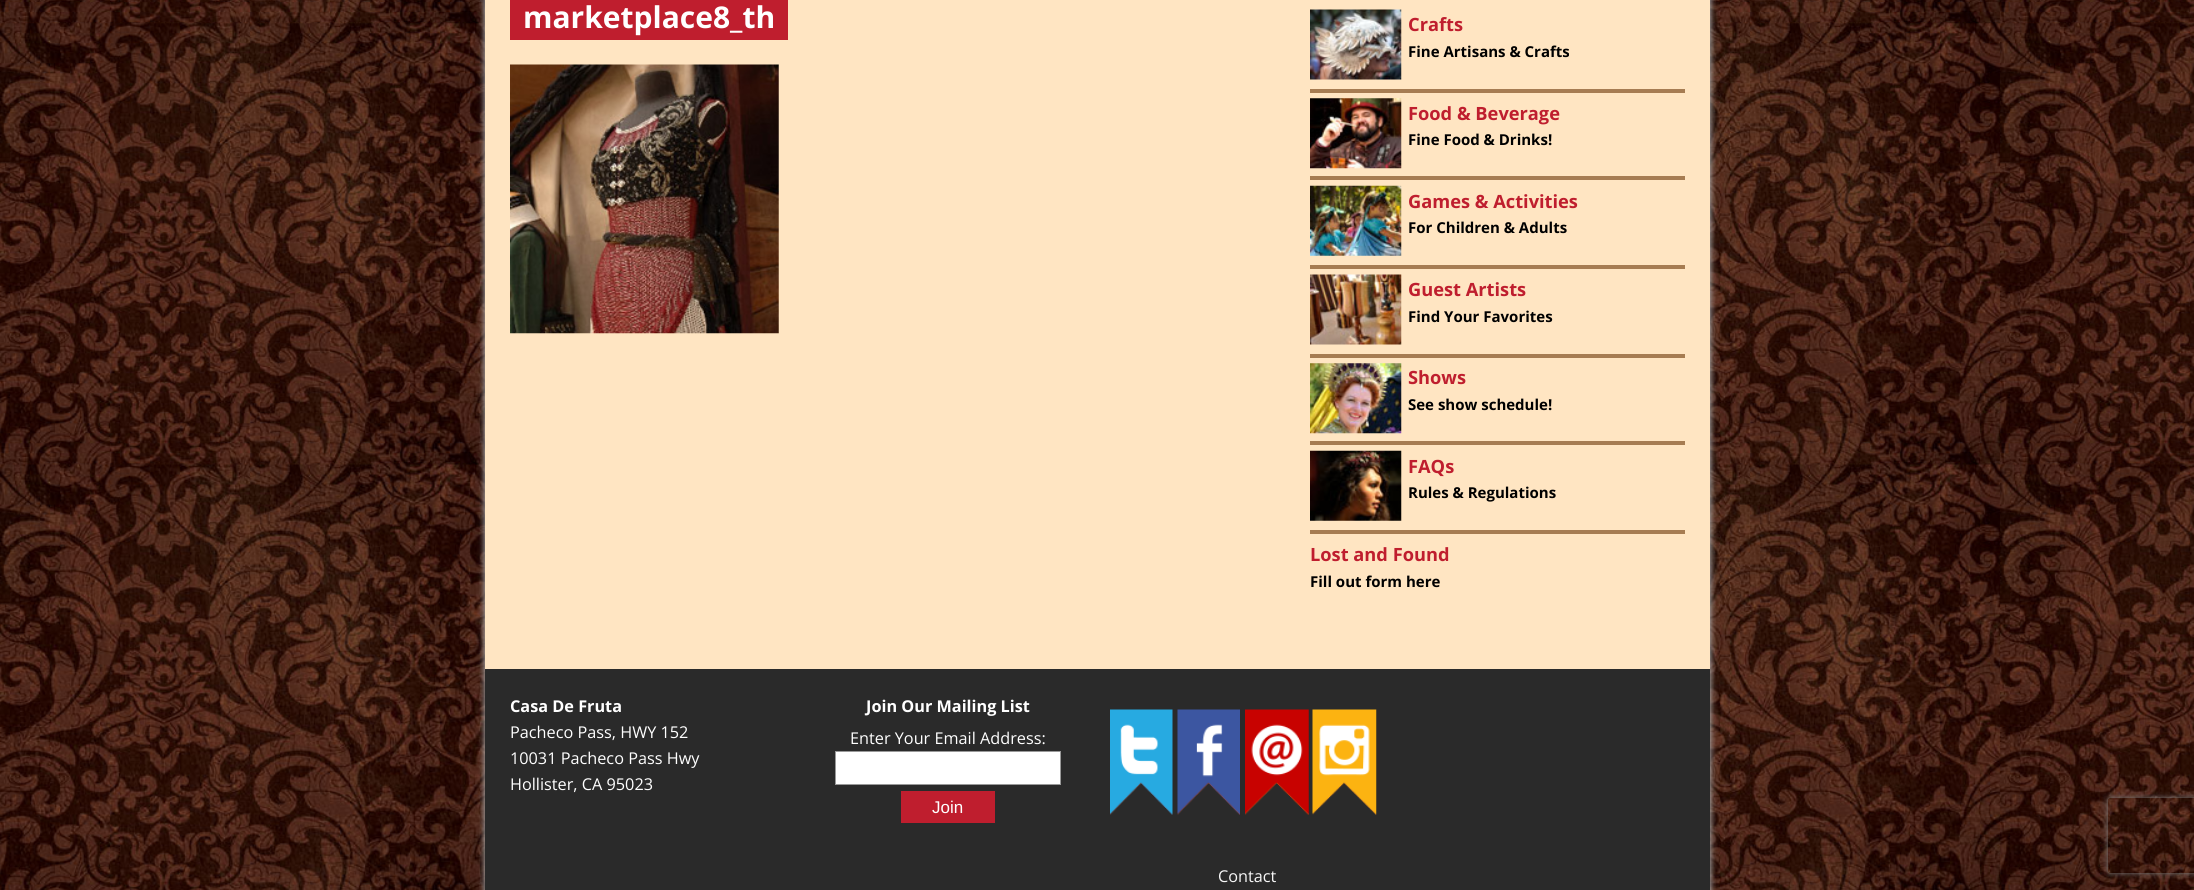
import math
import cairo

surface = cairo.ImageSurface(cairo.FORMAT_RGB24, 2194, 890)
c = cairo.Context(surface)
options = cairo.FontOptions()
options.set_hint_metrics(cairo.HINT_METRICS_OFF)
options.set_hint_style(cairo.HINT_STYLE_NONE)
c.set_font_options(options)
c.set_miter_limit(4)
def C(code):
 c.set_source_rgb(*(v / 255 for v in bytes.fromhex(code[-6:])))
def F(family, size, italic, bold):
 c.select_font_face(family, cairo.FONT_SLANT_ITALIC if italic else cairo.FONT_SLANT_NORMAL, cairo.FONT_WEIGHT_BOLD if bold else cairo.FONT_WEIGHT_NORMAL)
 c.set_font_size(size)
def T(x, y, s):
 c.move_to(x, y)
 c.show_text(s)
def R(x, y, w, h):
 c.rectangle(x, y, w, h)
 c.fill()
def Q(x, y, w, h, r):
 c.new_sub_path()
 for i, (u, v) in enumerate([(x + w - r, y + h - r), (x + r, y + h - r), (x + r, y + r), (x + w - r, y + r)]):
  c.arc(u, v, r, i * math.pi / 2, (i + 1) * math.pi / 2)
 c.close_path()
def S(x, y, w, h, r, blur, alpha):
 c.push_group_with_content(cairo.CONTENT_ALPHA)
 c.set_operator(cairo.OPERATOR_SOURCE)
 for i in range(15, -16, -2):
  e = blur * i / 6
  if min(w, h) + 2 * e > 0:
   c.set_source_rgba(0, 0, 0, alpha * math.erfc((i - 1) / 8.5) / 2)
   Q(x - e, y - e, w + 2 * e, h + 2 * e, max(0, min(r + e + blur * .6, min(w, h) / 2 + e)))
   c.fill()
 c.mask(c.pop_group())
def I(path, x, y, w, h):
 c.save()
 c.set_source_surface(cairo.ImageSurface.create_from_png(path), x, y)
 c.rectangle(x, y, w, h)
 c.fill()
 c.restore()
C('ffffff')
c.paint()
I('1.png',0,0,2194,890)
C('a8a8a8')
S(484,-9,1227,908,0,3,1)
C('ffe5c2')
R(485,0,1225,669)
C('bf1e2e')
R(510,0,278,40)
F('Open Sans',30,0,1)
C('ffffff')
T(523,28,'marketplace8_th')
I('2.png',510,64,269,270)
C('a67c52')
R(1310,89,375,4)
I('3.png',1310,9,92,71)
F('Open Sans',18.25,0,1)
C('bf1e2e')
T(1408,31,'Crafts')
F('Open Sans',15,0,1)
C('000000')
T(1408,57,'Fine Artisans & Crafts')
C('a67c52')
R(1310,176,375,4)
I('4.png',1310,98,92,71)
F('Open Sans',18.25,0,1)
C('bf1e2e')
T(1408,120,'Food & Beverage')
F('Open Sans',15,0,1)
C('000000')
T(1408,145,'Fine Food & Drinks!')
C('a67c52')
R(1310,265,375,4)
I('5.png',1310,185,92,71)
F('Open Sans',18.25,0,1)
C('bf1e2e')
T(1408,208,'Games & Activities')
F('Open Sans',15,0,1)
C('000000')
T(1408,233,'For Children & Adults')
C('a67c52')
R(1310,354,375,4)
I('6.png',1310,274,92,71)
F('Open Sans',18.25,0,1)
C('bf1e2e')
T(1408,296,'Guest Artists')
F('Open Sans',15,0,1)
C('000000')
T(1408,322,'Find Your Favorites')
C('a67c52')
R(1310,441,375,4)
I('7.png',1310,363,92,71)
F('Open Sans',18.25,0,1)
C('bf1e2e')
T(1408,384,'Shows')
F('Open Sans',15,0,1)
C('000000')
T(1408,410,'See show schedule!')
C('a67c52')
R(1310,530,375,4)
I('8.png',1310,450,92,71)
F('Open Sans',18.25,0,1)
C('bf1e2e')
T(1408,473,'FAQs')
F('Open Sans',15,0,1)
C('000000')
T(1408,498,'Rules & Regulations')
F('Open Sans',18.25,0,1)
C('bf1e2e')
T(1310,561,'Lost and Found')
F('Open Sans',15,0,1)
C('000000')
T(1310,587,'Fill out form here')
C('2a2a2a')
R(485,669,1225,221)
F('Open Sans',16.25,0,1)
C('ffffff')
T(510,712,'Casa De Fruta')
F('Open Sans',16.25,0,0)
T(510,738,'Pacheco Pass, HWY 152')
T(510,764,'10031 Pacheco Pass Hwy')
T(510,790,'Hollister, CA 95023')
F('Open Sans',16.25,0,1)
T(866,712,'Join Our Mailing List')
F('Open Sans',16.25,0,0)
T(850,744,'Enter Your Email Address:')
c.rectangle(835.5,751.5,225,33)
c.fill_preserve()
C('999999')
c.set_line_width(1)
c.stroke()
C('bf1e2e')
R(901,791,94,32)
F('Liberation Sans',17,0,0)
C('ffffff')
T(932,813,'Join')
I('9.png',1110,709,63,106)
I('10.png',1177,709,63,106)
I('11.png',1245,709,64,106)
I('12.png',1312,709,65,106)
F('Open Sans',16.25,0,0)
C('f7f7f7')
T(1218,882,'Contact')
c.save()
c.set_fill_rule(cairo.FILL_RULE_EVEN_ODD)
c.new_path()
c.move_to(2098,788)
c.line_to(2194,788)
c.line_to(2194,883)
c.line_to(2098,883)
c.close_path()
c.move_to(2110.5,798)
c.line_to(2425.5,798)
c.curve_to(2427,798,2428,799,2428,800.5)
c.line_to(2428,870.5)
c.curve_to(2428,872,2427,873,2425.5,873)
c.line_to(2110.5,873)
c.curve_to(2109,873,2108,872,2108,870.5)
c.line_to(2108,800.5)
c.curve_to(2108,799,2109,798,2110.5,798)
c.close_path()
c.clip()
C('808080')
S(2108,798,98,75,2.5,3,1)
c.restore()
surface.write_to_png('o.png')
